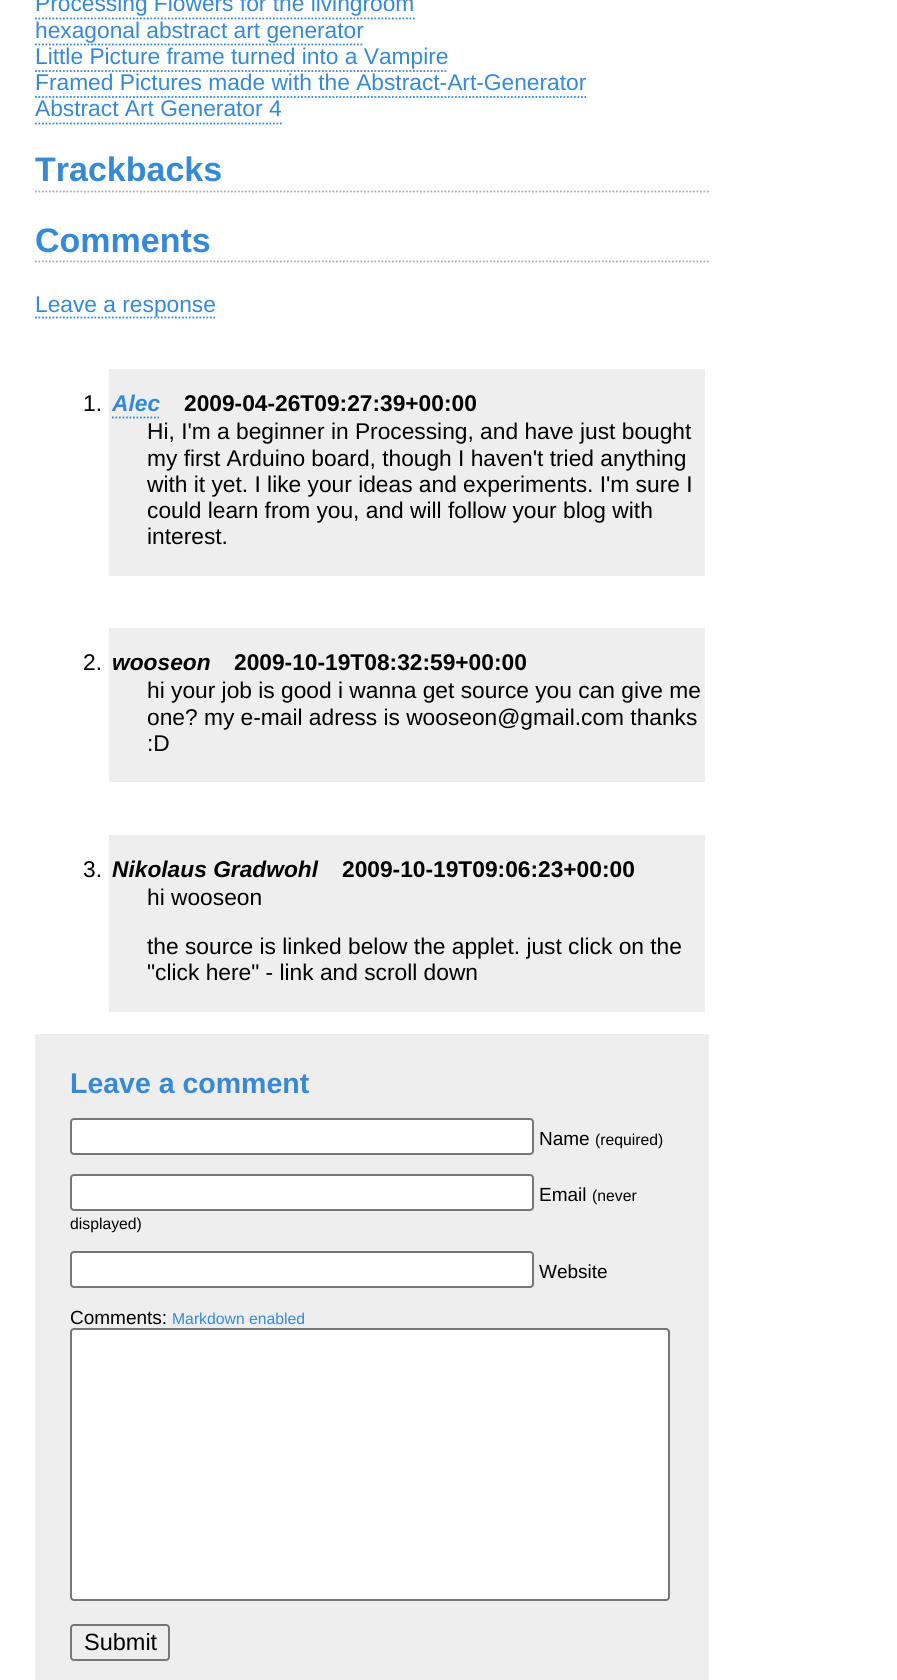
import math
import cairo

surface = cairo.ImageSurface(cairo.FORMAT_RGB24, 897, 1680)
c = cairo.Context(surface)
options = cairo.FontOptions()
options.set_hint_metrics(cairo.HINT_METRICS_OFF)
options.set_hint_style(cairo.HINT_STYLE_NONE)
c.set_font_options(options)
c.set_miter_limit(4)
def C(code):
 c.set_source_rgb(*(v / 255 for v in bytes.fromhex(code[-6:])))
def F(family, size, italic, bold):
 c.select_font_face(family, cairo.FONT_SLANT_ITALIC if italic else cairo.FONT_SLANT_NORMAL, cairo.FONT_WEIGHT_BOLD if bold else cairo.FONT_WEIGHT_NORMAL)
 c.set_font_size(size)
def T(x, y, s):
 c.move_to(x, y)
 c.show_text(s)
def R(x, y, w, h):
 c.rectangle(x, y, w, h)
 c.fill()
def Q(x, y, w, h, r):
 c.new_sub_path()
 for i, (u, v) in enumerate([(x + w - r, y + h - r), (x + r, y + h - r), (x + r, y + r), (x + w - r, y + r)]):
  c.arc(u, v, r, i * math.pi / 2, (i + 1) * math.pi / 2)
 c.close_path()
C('ffffff')
c.paint()
F('Liberation Sans',22.75,0,0)
C('348ad6')
T(35,11,'Processing Flowers for the livingroom')
c.new_path()
c.move_to(35,18.5)
c.line_to(415,18.5)
c.set_line_width(1.8)
c.set_dash([1.75,1.75])
c.stroke()
T(35,38,'hexagonal abstract art generator')
c.new_path()
c.move_to(35,44.5)
c.line_to(364,44.5)
c.stroke()
T(35,64,'Little Picture frame turned into a Vampire')
c.new_path()
c.move_to(35,71)
c.line_to(448,71)
c.stroke()
T(35,90,'Framed Pictures made with the Abstract-Art-Generator')
c.new_path()
c.move_to(35,97)
c.line_to(586,97)
c.stroke()
T(35,116,'Abstract Art Generator 4')
c.new_path()
c.move_to(35,123.5)
c.line_to(282,123.5)
c.stroke()
c.new_path()
c.move_to(35,191.5)
c.line_to(709,191.5)
C('aaaaaa')
c.stroke()
F('Liberation Sans',34,0,1)
C('348ad6')
T(35,181,'Trackbacks')
c.new_path()
c.move_to(35,261.5)
c.line_to(709,261.5)
C('aaaaaa')
c.stroke()
C('348ad6')
T(35,252,'Comments')
c.new_path()
c.move_to(35,317.5)
c.line_to(215,317.5)
c.stroke()
F('Liberation Sans',22.75,0,0)
T(35,312,'Leave a response')
C('eeeeee')
R(109,369,596,207)
C('000000')
T(83,411,'1.')
F('Liberation Sans',22.75,1,1)
C('348ad6')
T(112,411,'Alec')
c.new_path()
c.move_to(112,417.5)
c.line_to(159,417.5)
c.stroke()
F('Liberation Sans',22.75,0,1)
C('000000')
T(184,411,'2009-04-26T09:27:39+00:00')
F('Liberation Sans',22.75,0,0)
T(147,439,'Hi, I\'m a beginner in Processing, and have just bought')
T(147,466,'my first Arduino board, though I haven\'t tried anything')
T(147,492,'with it yet. I like your ideas and experiments. I\'m sure I')
T(147,518,'could learn from you, and will follow your blog with')
T(147,544,'interest.')
C('eeeeee')
R(109,628,596,154)
C('000000')
T(83,670,'2.')
F('Liberation Sans',22.75,1,1)
T(112,670,'wooseon')
F('Liberation Sans',22.75,0,1)
T(234,670,'2009-10-19T08:32:59+00:00')
F('Liberation Sans',22.75,0,0)
T(147,698,'hi your job is good i wanna get source you can give me')
T(147,725,'one? my e-mail adress is wooseon@gmail.com thanks')
T(147,751,':D')
C('eeeeee')
R(109,835,596,177)
C('000000')
T(83,877,'3.')
F('Liberation Sans',22.75,1,1)
T(112,877,'Nikolaus Gradwohl')
F('Liberation Sans',22.75,0,1)
T(342,877,'2009-10-19T09:06:23+00:00')
F('Liberation Sans',22.75,0,0)
T(147,905,'hi wooseon')
T(147,954,'the source is linked below the applet. just click on the')
T(147,980,'"click here" - link and scroll down')
C('eeeeee')
R(35,1034,674,646)
F('Liberation Sans',28.5,0,1)
C('348ad6')
T(70,1093,'Leave a comment')
C('ffffff')
Q(71,1119,462,35,3)
c.fill_preserve()
C('767676')
c.set_line_width(2)
c.set_dash([])
c.stroke()
F('Liberation Sans',19,0,0)
C('000000')
T(539,1145,'Name')
F('Liberation Sans',15.75,0,0)
T(595,1145,'(required)')
C('ffffff')
Q(71,1175,462,35,3)
c.fill_preserve()
C('767676')
c.stroke()
F('Liberation Sans',19,0,0)
C('000000')
T(539,1201,'Email')
F('Liberation Sans',15.75,0,0)
T(592,1201,'(never')
T(70,1229,'displayed)')
C('ffffff')
Q(71,1252,462,35,3)
c.fill_preserve()
C('767676')
c.stroke()
F('Liberation Sans',19,0,0)
C('000000')
T(539,1278,'Website')
T(70,1324,'Comments:')
F('Liberation Sans',15.75,0,0)
C('348ad6')
T(172,1324,'Markdown enabled')
C('ffffff')
Q(71,1329,598,271,3)
c.fill_preserve()
C('767676')
c.stroke()
Q(71,1625,98,35,3)
c.stroke()
F('Liberation Sans',23.5,0,0)
C('000000')
T(84,1650,'Submit')
surface.write_to_png('o.png')
